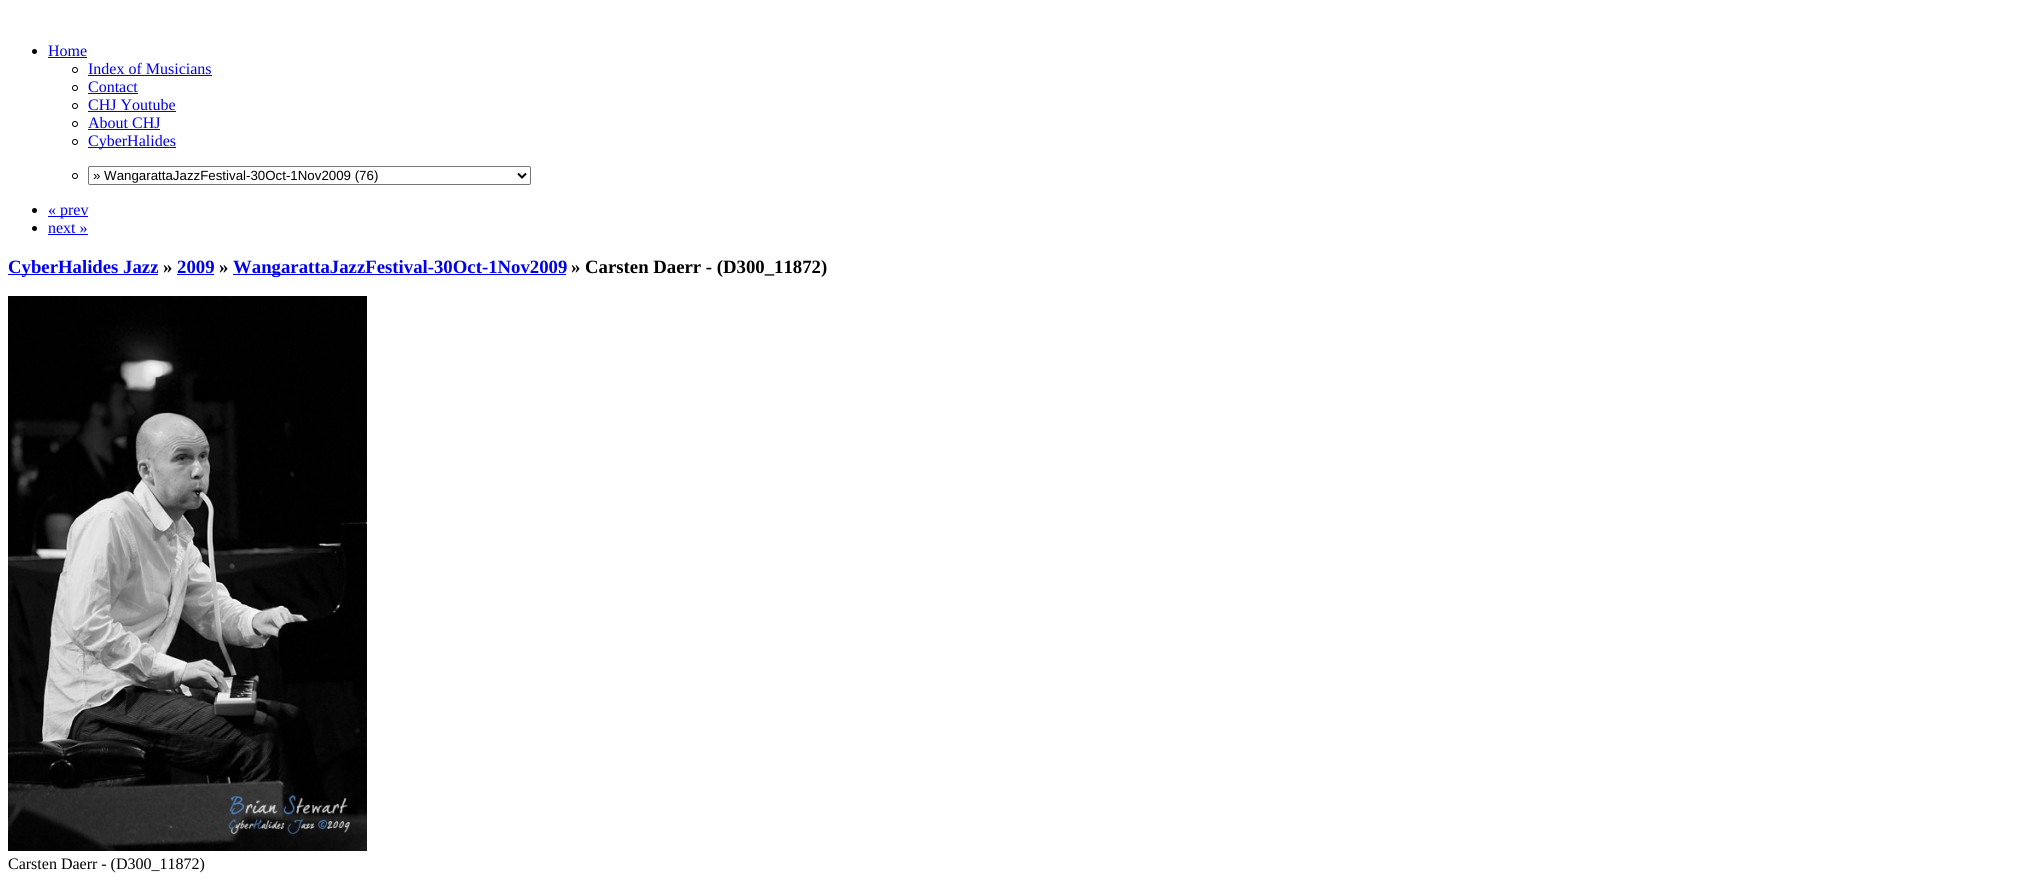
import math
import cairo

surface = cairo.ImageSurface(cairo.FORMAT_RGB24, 2043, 882)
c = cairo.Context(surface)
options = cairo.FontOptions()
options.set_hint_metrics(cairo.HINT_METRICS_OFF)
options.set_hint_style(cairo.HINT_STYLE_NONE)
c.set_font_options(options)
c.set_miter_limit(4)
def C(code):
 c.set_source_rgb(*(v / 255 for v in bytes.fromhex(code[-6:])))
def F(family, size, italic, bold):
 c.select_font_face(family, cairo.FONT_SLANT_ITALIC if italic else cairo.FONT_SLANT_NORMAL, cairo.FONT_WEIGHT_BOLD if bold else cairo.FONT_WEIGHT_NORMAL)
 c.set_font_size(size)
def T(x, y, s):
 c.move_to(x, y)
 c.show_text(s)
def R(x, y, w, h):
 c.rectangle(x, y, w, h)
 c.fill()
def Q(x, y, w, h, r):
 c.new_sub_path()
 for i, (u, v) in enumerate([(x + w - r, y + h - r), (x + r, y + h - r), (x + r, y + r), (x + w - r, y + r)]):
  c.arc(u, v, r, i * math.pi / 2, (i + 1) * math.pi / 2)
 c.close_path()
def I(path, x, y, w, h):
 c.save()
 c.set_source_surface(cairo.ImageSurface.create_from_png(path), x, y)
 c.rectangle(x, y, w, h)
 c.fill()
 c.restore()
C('ffffff')
c.paint()
C('000000')
c.arc(34.5,51.5,2.5,0,2 * math.pi)
c.fill()
F('Liberation Serif',16,0,0)
C('0000ee')
T(48,56,'Home')
R(48,57,39,1)
c.new_path()
c.arc(75,70,2.5,0,2 * math.pi)
C('000000')
c.set_line_width(1)
c.stroke()
C('0000ee')
T(88,74,'Index of Musicians')
R(88,75,124,1)
c.new_path()
c.arc(75,88,2.5,0,2 * math.pi)
C('000000')
c.stroke()
C('0000ee')
T(88,92,'Contact')
R(88,93,50,1)
c.new_path()
c.arc(75,106,2.5,0,2 * math.pi)
C('000000')
c.stroke()
C('0000ee')
T(88,110,'CHJ Youtube')
R(88,111,88,1)
c.new_path()
c.arc(75,124,2.5,0,2 * math.pi)
C('000000')
c.stroke()
C('0000ee')
T(88,128,'About CHJ')
R(88,129,72,1)
c.new_path()
c.arc(75,142,2.5,0,2 * math.pi)
C('000000')
c.stroke()
C('0000ee')
R(88,147,88,1)
T(88,146,'CyberHalides')
c.new_path()
c.arc(75,176,2.5,0,2 * math.pi)
C('000000')
c.stroke()
Q(88.5,166.5,442,18,1.5)
C('767676')
c.stroke()
c.new_path()
c.move_to(518,173.5)
c.line_to(522,177.5)
c.line_to(526,173.5)
C('000000')
c.set_line_width(2)
c.stroke()
F('Liberation Sans',13.3,0,0)
T(93,180,'» WangarattaJazzFestival-30Oct-1Nov2009 (76)')
c.new_path()
c.arc(34.5,210.5,2.5,0,2 * math.pi)
c.fill()
C('0000ee')
R(48,216,40,1)
F('Liberation Serif',16,0,0)
T(48,215,'« prev')
C('000000')
c.new_path()
c.arc(34.5,228.5,2.5,0,2 * math.pi)
c.fill()
C('0000ee')
T(48,233,'next »')
R(48,234,40,1)
R(8,274,150,1)
F('Liberation Serif',18.75,0,1)
T(8,273,'CyberHalides Jazz')
C('000000')
T(163,273,'»')
C('0000ee')
T(177,273,'2009')
R(177,274,37,1)
C('000000')
T(219,273,'»')
C('0000ee')
R(233,274,333,1)
T(233,273,'WangarattaJazzFestival-30Oct-1Nov2009')
C('000000')
T(571,273,'» Carsten Daerr - (D300_11872)')
I('1.png',8,296,359,555)
F('Liberation Serif',16,0,0)
T(8,869,'Carsten Daerr - (D300_11872)')
surface.write_to_png('o.png')
